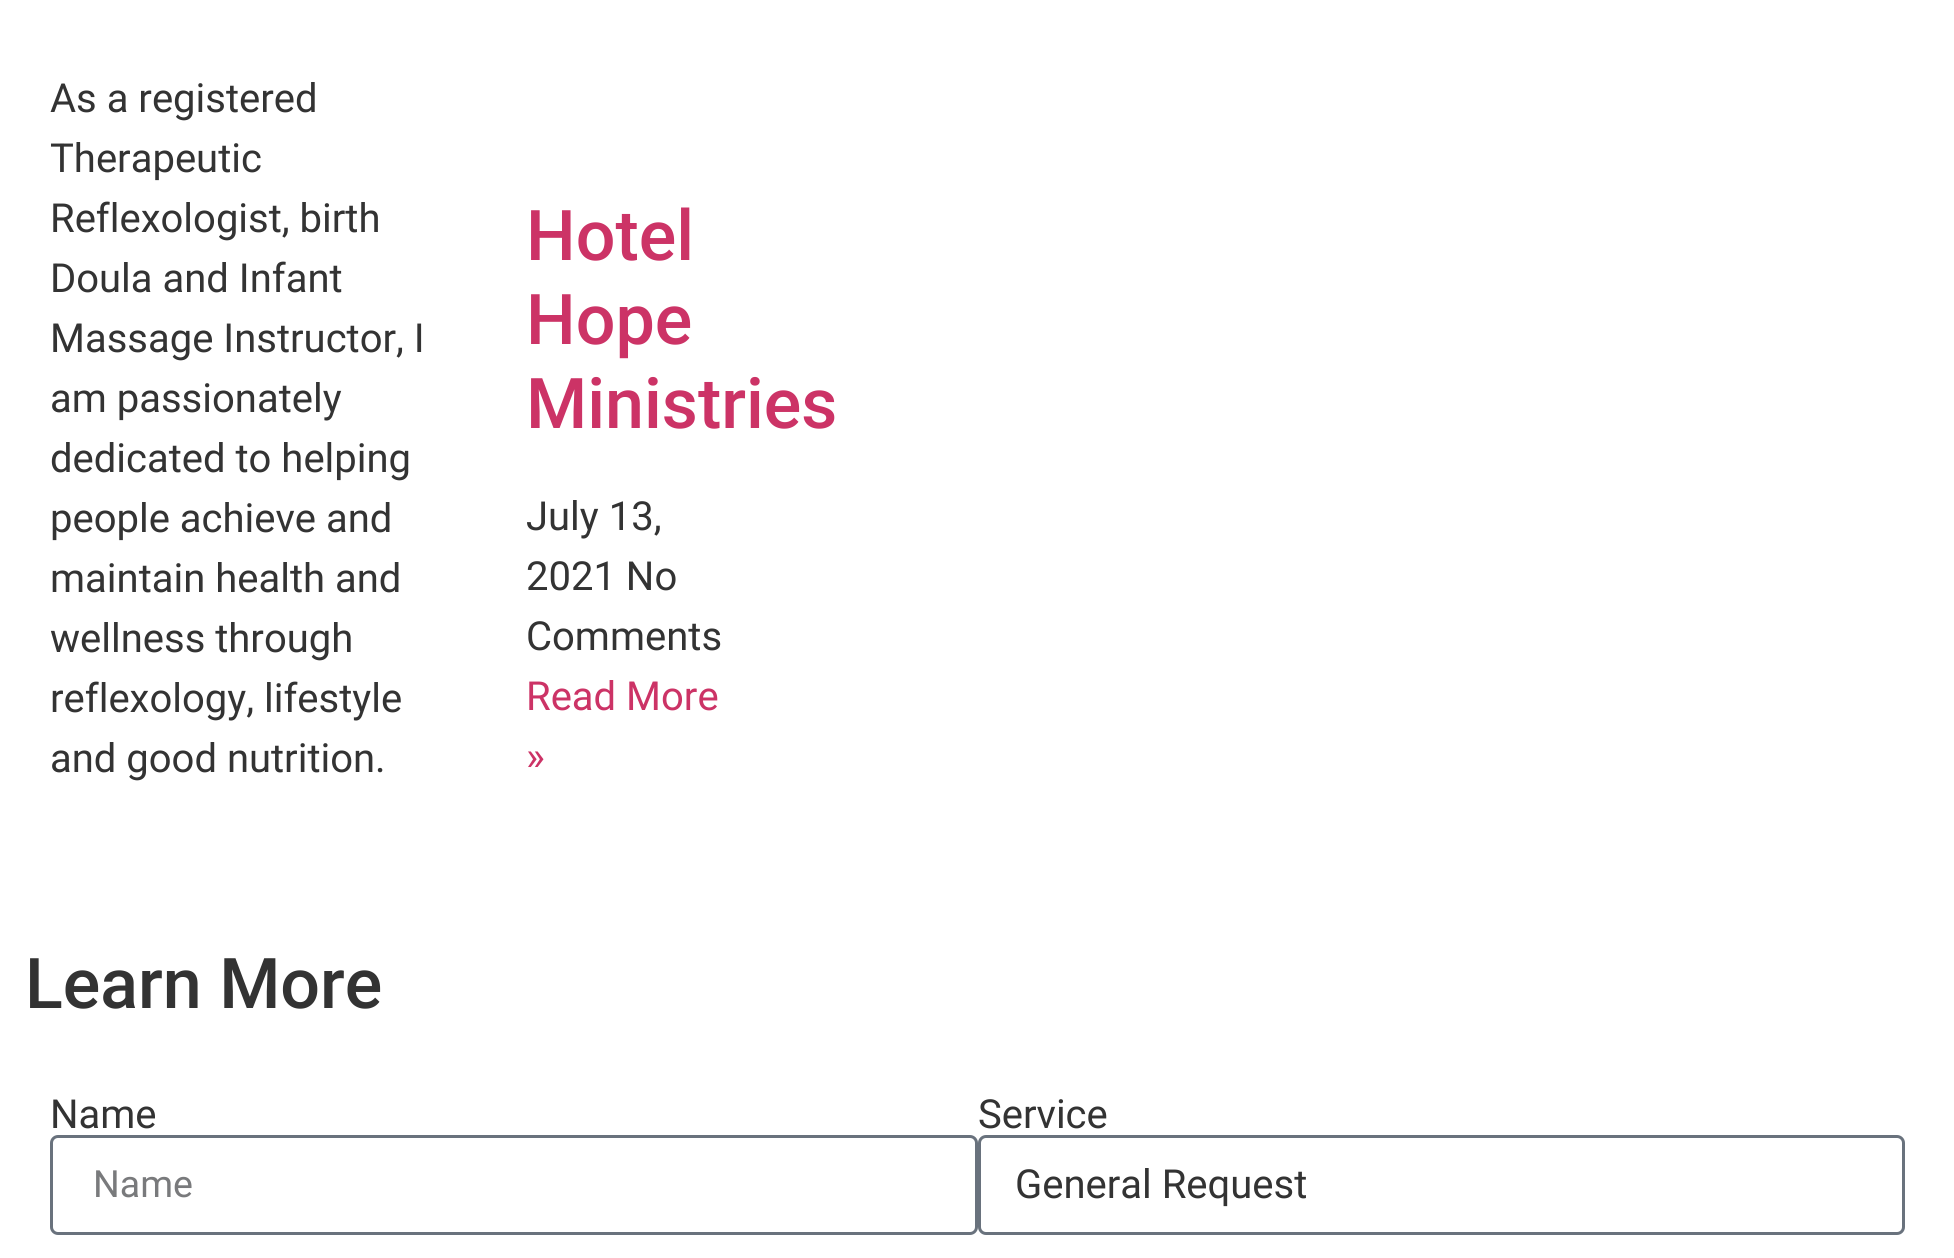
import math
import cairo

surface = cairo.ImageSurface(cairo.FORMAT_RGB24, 1954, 1258)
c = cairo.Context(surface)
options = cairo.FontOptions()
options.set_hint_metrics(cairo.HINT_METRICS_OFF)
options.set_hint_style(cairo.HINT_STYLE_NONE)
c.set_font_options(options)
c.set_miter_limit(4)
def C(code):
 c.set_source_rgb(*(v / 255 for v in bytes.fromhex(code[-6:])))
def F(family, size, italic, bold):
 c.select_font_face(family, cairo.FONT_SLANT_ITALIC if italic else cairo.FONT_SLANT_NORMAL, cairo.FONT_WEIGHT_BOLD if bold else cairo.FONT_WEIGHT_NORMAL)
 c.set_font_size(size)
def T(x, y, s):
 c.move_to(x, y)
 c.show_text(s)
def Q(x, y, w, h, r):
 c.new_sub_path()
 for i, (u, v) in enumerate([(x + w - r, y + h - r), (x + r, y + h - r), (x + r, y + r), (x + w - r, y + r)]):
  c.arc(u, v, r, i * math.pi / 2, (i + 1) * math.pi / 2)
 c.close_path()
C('ffffff')
c.paint()
F('Roboto',40,0,0)
C('333333')
T(50,112,'As a registered')
T(50,172,'Therapeutic')
T(50,232,'Reflexologist, birth')
T(50,292,'Doula and Infant')
T(50,352,'Massage Instructor, I')
T(50,412,'am passionately')
T(50,472,'dedicated to helping')
T(50,532,'people achieve and')
T(50,592,'maintain health and')
T(50,652,'wellness through')
T(50,712,'reflexology, lifestyle')
T(50,772,'and good nutrition.')
F('Roboto Medium',70,0,0)
C('cc3366')
T(526,260,'Hotel')
T(526,344,'Hope')
T(526,428,'Ministries')
F('Roboto',40,0,0)
C('333333')
T(526,530,'July 13,')
T(526,590,'2021 No')
T(526,650,'Comments')
C('cc3366')
T(526,710,'Read More')
T(526,770,'»')
F('Roboto Medium',70,0,0)
C('333333')
T(25,1008,'Learn More')
F('Roboto',40,0,0)
T(50,1128,'Name')
Q(51.5,1136.5,925,97,6.5)
C('69727d')
c.set_line_width(3)
c.stroke()
F('Roboto',37.5,0,0)
C('797a7c')
T(93,1197,'Name')
F('Roboto',40,0,0)
C('333333')
T(978,1128,'Service')
Q(979.5,1136.5,924,97,6.5)
C('69727d')
c.stroke()
C('333333')
T(1015,1198,'General Request')
surface.write_to_png('o.png')
